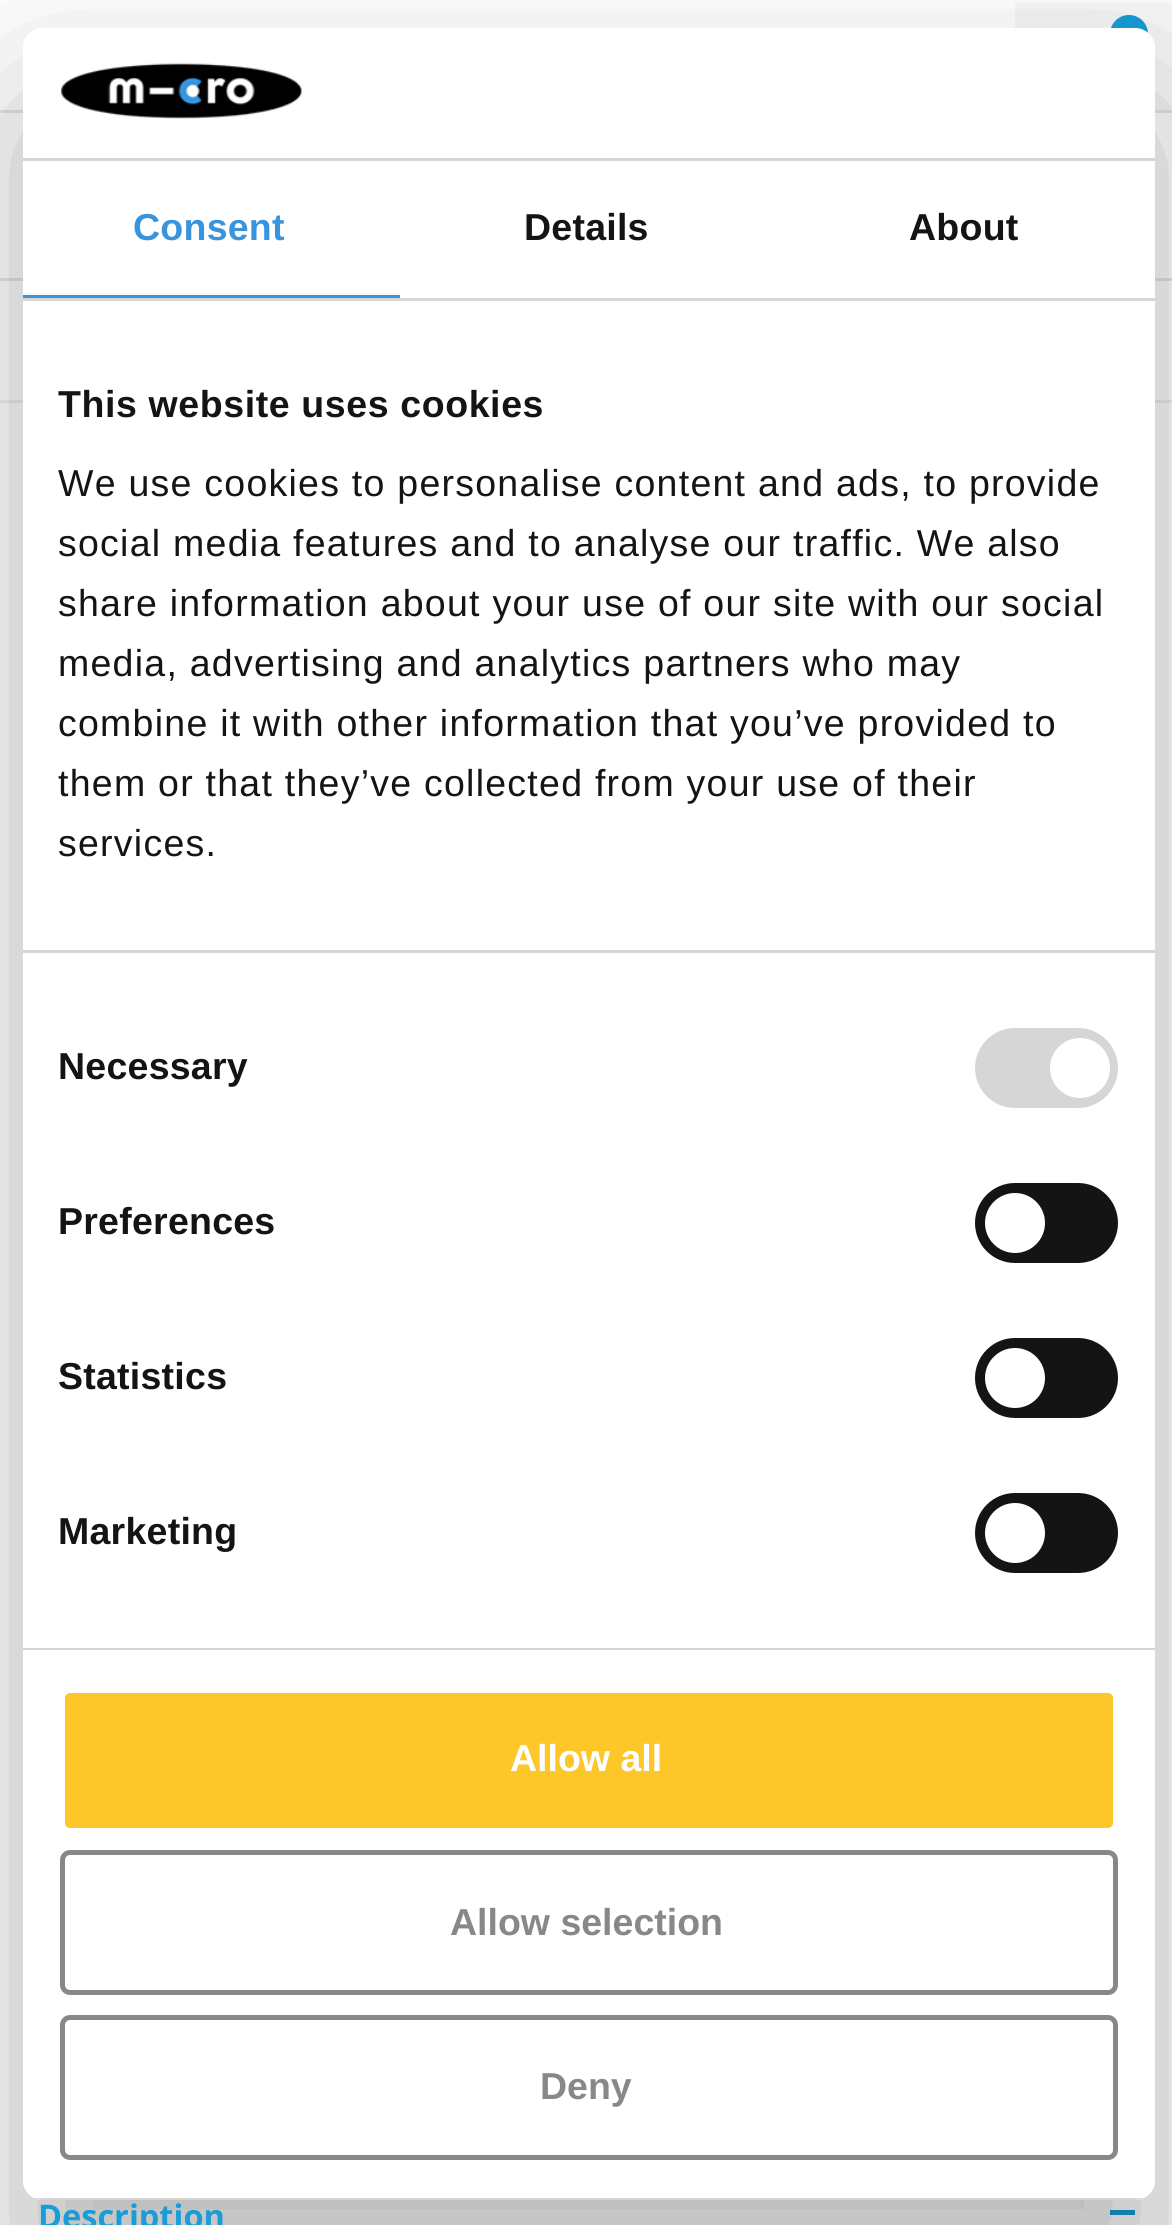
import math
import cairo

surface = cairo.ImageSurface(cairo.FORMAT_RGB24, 1172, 2225)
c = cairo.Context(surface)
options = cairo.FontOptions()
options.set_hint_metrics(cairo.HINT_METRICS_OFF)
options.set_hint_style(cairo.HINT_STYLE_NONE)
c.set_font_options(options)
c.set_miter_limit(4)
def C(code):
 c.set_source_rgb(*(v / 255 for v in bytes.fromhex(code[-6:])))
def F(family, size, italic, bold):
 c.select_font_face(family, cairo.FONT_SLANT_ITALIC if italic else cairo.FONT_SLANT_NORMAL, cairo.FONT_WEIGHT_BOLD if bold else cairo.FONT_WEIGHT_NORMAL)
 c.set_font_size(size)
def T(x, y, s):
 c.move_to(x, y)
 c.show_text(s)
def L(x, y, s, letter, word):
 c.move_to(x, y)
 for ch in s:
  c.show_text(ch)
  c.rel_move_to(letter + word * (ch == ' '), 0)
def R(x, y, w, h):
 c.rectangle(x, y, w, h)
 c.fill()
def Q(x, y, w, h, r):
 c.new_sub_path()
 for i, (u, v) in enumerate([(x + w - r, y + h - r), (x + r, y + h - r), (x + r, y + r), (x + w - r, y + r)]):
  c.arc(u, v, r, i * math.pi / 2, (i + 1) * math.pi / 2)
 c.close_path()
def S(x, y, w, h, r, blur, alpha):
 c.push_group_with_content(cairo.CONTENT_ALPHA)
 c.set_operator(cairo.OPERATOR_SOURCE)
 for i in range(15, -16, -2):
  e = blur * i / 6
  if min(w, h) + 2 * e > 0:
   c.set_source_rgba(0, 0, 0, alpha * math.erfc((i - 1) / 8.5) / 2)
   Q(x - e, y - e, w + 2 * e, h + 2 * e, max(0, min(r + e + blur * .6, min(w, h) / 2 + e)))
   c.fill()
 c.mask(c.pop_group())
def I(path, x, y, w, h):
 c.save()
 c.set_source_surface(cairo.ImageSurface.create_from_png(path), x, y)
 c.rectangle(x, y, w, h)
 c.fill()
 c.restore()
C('ffffff')
c.paint()
C('f7f7f7')
R(1015,3,157,107)
C('189dd8')
c.arc(1129,34,19,0,2 * math.pi)
c.fill()
C('e5e5e5')
R(0,110,1172,3)
R(0,278,1172,3)
C('efefef')
R(0,400,1172,3)
C('189dd8')
R(1110,2210,25,5)
c.save()
c.set_fill_rule(cairo.FILL_RULE_EVEN_ODD)
c.new_path()
c.move_to(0,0)
c.line_to(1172,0)
c.line_to(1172,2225)
c.line_to(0,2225)
c.close_path()
c.move_to(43,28)
c.line_to(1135,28)
c.curve_to(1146,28,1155,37,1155,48)
c.line_to(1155,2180)
c.curve_to(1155,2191,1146,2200,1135,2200)
c.line_to(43,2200)
c.curve_to(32,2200,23,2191,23,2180)
c.line_to(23,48)
c.curve_to(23,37,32,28,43,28)
c.close_path()
c.clip()
C('000000')
S(23,108,1132,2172,20,85,.3)
c.restore()
C('ffffff')
Q(23,28,1132,2172,20)
c.fill()
C('d6d6d6')
R(23,158,1132,3)
I('1.png',60,63,242,56)
R(23,298,1132,3)
C('3894dd')
R(23,295,377,3)
F('Liberation Sans',37.5,0,1)
L(133,240,'Consent',.25,0)
C('141414')
L(524,240,'Details',.25,0)
L(909,240,'About',.25,0)
C('d6d6d6')
R(23,950,1132,3)
C('141414')
L(58,417,'This website uses cookies',.6,0)
F('Liberation Sans',37.5,0,0)
L(58,496,'We use cookies to personalise content and ads, to provide',1.25,0)
L(58,556,'social media features and to analyse our traffic. We also',1.25,0)
L(58,616,'share information about your use of our site with our social',1.25,0)
L(58,676,'media, advertising and analytics partners who may',1.25,0)
L(58,736,'combine it with other information that you’ve provided to',1.25,0)
L(58,796,'them or that they’ve collected from your use of their',1.25,0)
L(58,856,'services.',1.25,0)
C('d6d6d6')
R(23,1648,1132,2)
F('Liberation Sans',37.5,0,1)
C('141414')
L(58,1079,'Necessary',.25,0)
C('d6d6d6')
Q(975,1028,143,80,40)
c.fill()
C('ffffff')
c.arc(1080,1068,30,0,2 * math.pi)
c.fill()
C('141414')
L(58,1234,'Preferences',.25,0)
Q(975,1183,143,80,40)
c.fill()
C('ffffff')
c.arc(1015,1223,30,0,2 * math.pi)
c.fill()
C('141414')
L(58,1389,'Statistics',.25,0)
Q(975,1338,143,80,40)
c.fill()
C('ffffff')
c.arc(1015,1378,30,0,2 * math.pi)
c.fill()
C('141414')
L(58,1544,'Marketing',.25,0)
Q(975,1493,143,80,40)
c.fill()
C('ffffff')
c.arc(1015,1533,30,0,2 * math.pi)
c.fill()
c.save()
Q(23,28,1132,2172,20)
c.clip()
C('d6d6d6')
R(34,2198,1110,2)
c.restore()
C('fdc629')
Q(62.5,1690.5,1053,140,7.5)
c.fill_preserve()
C('ffffff')
c.set_line_width(5)
c.stroke()
T(510,1771,'Allow all')
Q(62.5,1852.5,1053,140,7.5)
C('888888')
c.stroke()
T(450,1935,'Allow selection')
Q(62.5,2017.5,1053,140,7.5)
c.stroke()
T(540,2099,'Deny')
F('Open Sans',32.5,0,1)
C('189dd8')
T(38,2228,'Description')
surface.write_to_png('o.png')
